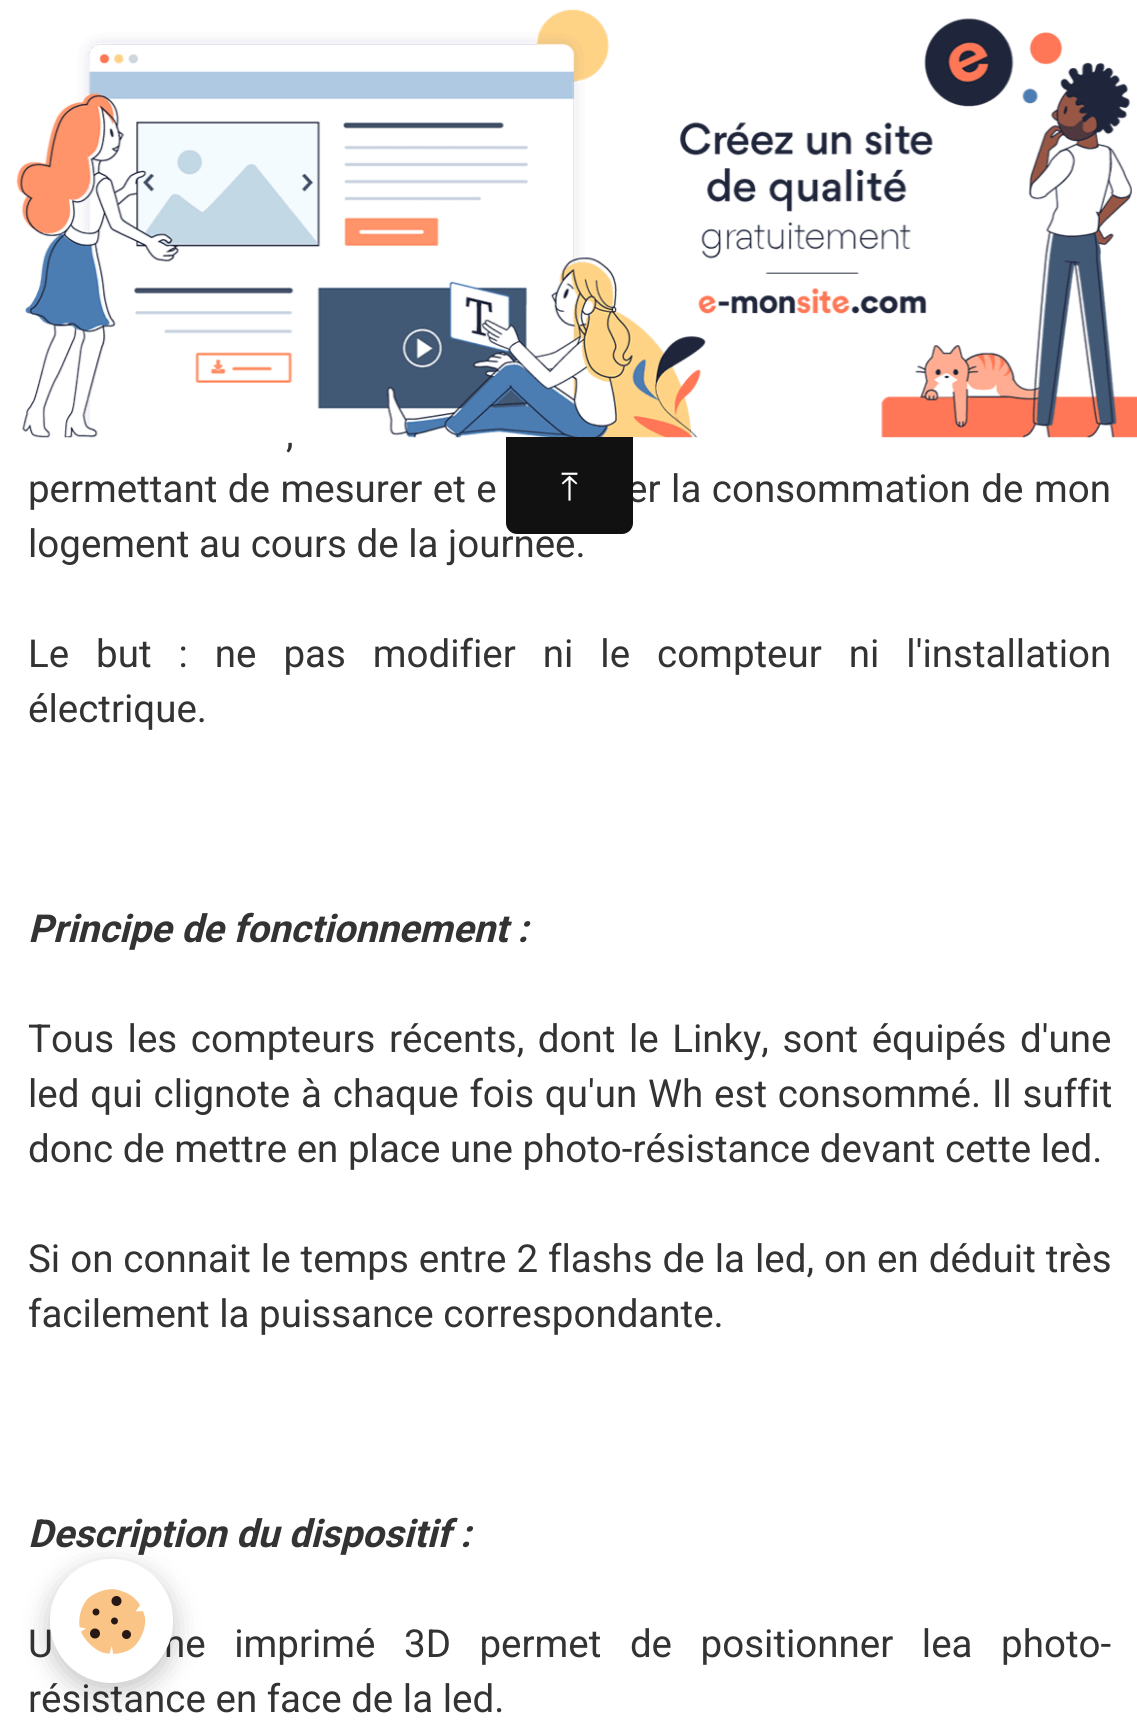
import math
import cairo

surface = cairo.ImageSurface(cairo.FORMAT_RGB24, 1137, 1731)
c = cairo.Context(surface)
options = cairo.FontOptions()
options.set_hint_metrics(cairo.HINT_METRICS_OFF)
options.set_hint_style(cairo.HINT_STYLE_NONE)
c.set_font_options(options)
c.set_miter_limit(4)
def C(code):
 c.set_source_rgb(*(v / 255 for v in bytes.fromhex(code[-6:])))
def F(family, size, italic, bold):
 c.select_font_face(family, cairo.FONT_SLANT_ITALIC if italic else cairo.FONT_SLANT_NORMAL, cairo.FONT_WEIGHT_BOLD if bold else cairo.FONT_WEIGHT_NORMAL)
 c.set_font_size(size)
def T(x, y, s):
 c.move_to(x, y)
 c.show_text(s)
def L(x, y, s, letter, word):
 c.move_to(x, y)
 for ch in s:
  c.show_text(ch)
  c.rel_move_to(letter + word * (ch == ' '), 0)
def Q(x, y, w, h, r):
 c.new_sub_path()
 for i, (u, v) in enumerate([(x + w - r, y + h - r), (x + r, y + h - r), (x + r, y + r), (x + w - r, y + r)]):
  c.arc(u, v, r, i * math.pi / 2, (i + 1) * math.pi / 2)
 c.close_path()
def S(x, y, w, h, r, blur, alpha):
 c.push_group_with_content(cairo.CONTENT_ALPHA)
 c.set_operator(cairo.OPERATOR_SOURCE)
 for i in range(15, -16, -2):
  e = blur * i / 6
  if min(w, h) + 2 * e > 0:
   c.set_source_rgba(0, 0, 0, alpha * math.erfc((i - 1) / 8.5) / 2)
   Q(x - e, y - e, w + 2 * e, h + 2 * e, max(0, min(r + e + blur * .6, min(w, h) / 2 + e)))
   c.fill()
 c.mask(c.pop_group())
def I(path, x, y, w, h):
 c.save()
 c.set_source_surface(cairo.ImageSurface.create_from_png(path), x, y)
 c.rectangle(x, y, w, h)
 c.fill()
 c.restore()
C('ffffff')
c.paint()
F('Roboto',38.5,0,0)
C('333333')
L(286,447,',',0,21)
L(28,502,'permettant de mesurer et e',0,1)
L(627,502,'er la consommation de mon',0,1)
T(28,557,'logement au cours de la journée.')
L(28,667,'Le but : ne pas modifier ni le compteur ni l\'installation',0,17.4)
T(28,722,'électrique.')
F('Roboto',38.5,1,1)
T(28,942,'Principe de fonctionnement :')
F('Roboto',38.5,0,0)
L(28,1052,'Tous les compteurs récents, dont le Linky, sont équipés d\'une',0,4)
L(28,1107,'led qui clignote à chaque fois qu\'un Wh est consommé. Il suffit',0,1.25)
T(28,1162,'donc de mettre en place une photo-résistance devant cette led.')
L(28,1272,'Si on connait le temps entre 2 flashs de la led, on en déduit très',0,.4)
T(28,1327,'facilement la puissance correspondante.')
F('Roboto',38.5,1,1)
T(28,1547,'Description du dispositif :')
F('Roboto',38.5,0,0)
L(28,1657,'U',0,19)
L(164,1657,'he imprimé 3D permet de positionner lea photo-',0,19)
T(28,1712,'résistance en face de la led.')
I('1.png',16,9,1121,429)
C('111111')
c.new_path()
c.move_to(506,437)
c.line_to(633,437)
c.line_to(633,523)
c.curve_to(633,529,628,534,622,534)
c.line_to(517,534)
c.curve_to(511,534,506,529,506,523)
c.close_path()
c.fill()
F('FreeSerif',38.5,0,0)
C('ffffff')
T(561,500,'⤒')
C('000000')
S(50,1568,123,123,61.5,14,.24)
C('ffffff')
Q(50,1559,123,124,61.5)
c.fill()
I('2.png',79,1589,67,65)
surface.write_to_png('o.png')
